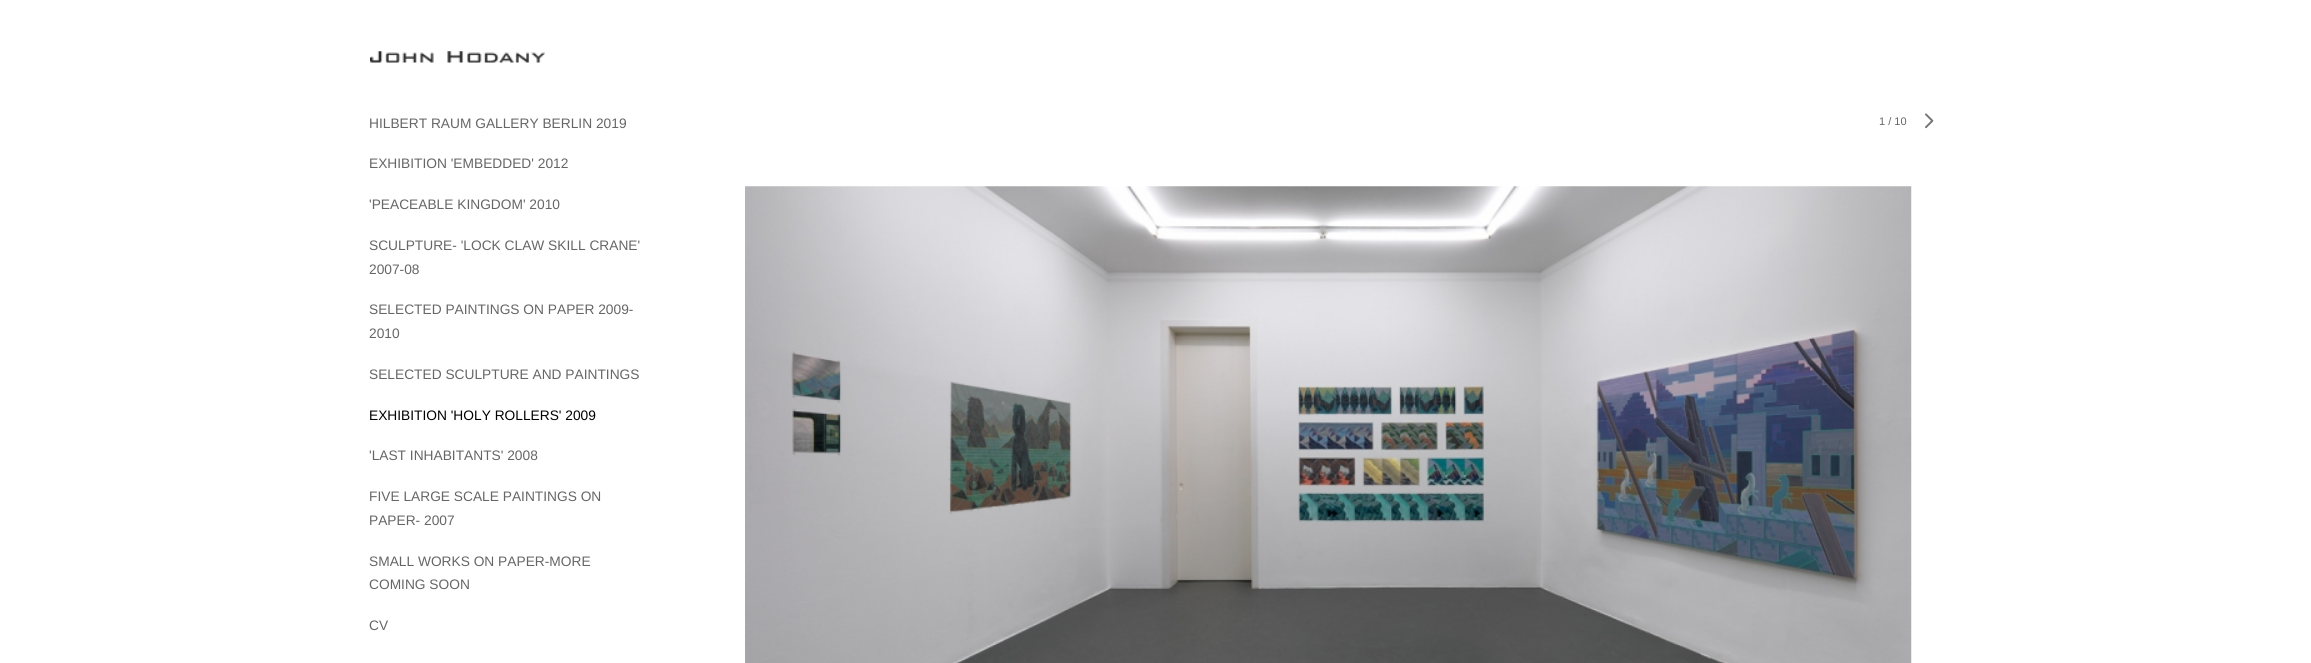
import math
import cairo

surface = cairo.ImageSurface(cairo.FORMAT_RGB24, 2311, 663)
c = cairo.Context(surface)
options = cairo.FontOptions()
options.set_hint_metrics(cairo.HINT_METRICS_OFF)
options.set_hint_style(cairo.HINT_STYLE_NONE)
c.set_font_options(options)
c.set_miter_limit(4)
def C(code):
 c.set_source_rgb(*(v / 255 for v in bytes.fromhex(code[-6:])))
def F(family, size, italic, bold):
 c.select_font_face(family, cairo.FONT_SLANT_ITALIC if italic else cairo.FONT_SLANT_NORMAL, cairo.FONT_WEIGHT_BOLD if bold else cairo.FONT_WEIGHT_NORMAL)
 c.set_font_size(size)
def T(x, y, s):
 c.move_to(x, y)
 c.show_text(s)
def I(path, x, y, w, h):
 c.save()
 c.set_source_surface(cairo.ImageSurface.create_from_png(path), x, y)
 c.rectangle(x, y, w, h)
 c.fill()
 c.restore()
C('ffffff')
c.paint()
I('1.png',370,51,175,12)
F('Liberation Sans',13.75,0,0)
C('666666')
T(369,128,'HILBERT RAUM GALLERY BERLIN 2019')
T(369,168,'EXHIBITION \'EMBEDDED\' 2012')
T(369,209,'\'PEACEABLE KINGDOM\' 2010')
T(369,250,'SCULPTURE- \'LOCK CLAW SKILL CRANE\'')
T(369,274,'2007-08')
T(369,314,'SELECTED PAINTINGS ON PAPER 2009-')
T(369,338,'2010')
T(369,379,'SELECTED SCULPTURE AND PAINTINGS')
C('000000')
T(369,420,'EXHIBITION \'HOLY ROLLERS\' 2009')
C('666666')
T(369,460,'\'LAST INHABITANTS\' 2008')
T(369,501,'FIVE LARGE SCALE PAINTINGS ON')
T(369,525,'PAPER- 2007')
T(369,566,'SMALL WORKS ON PAPER-MORE')
T(369,589,'COMING SOON')
T(369,630,'CV')
F('Liberation Sans',11,0,0)
T(1879,125,'1 / 10')
I('2.png',1925,113,9,16)
I('3.png',745,186,1167,477)
surface.write_to_png('o.png')
